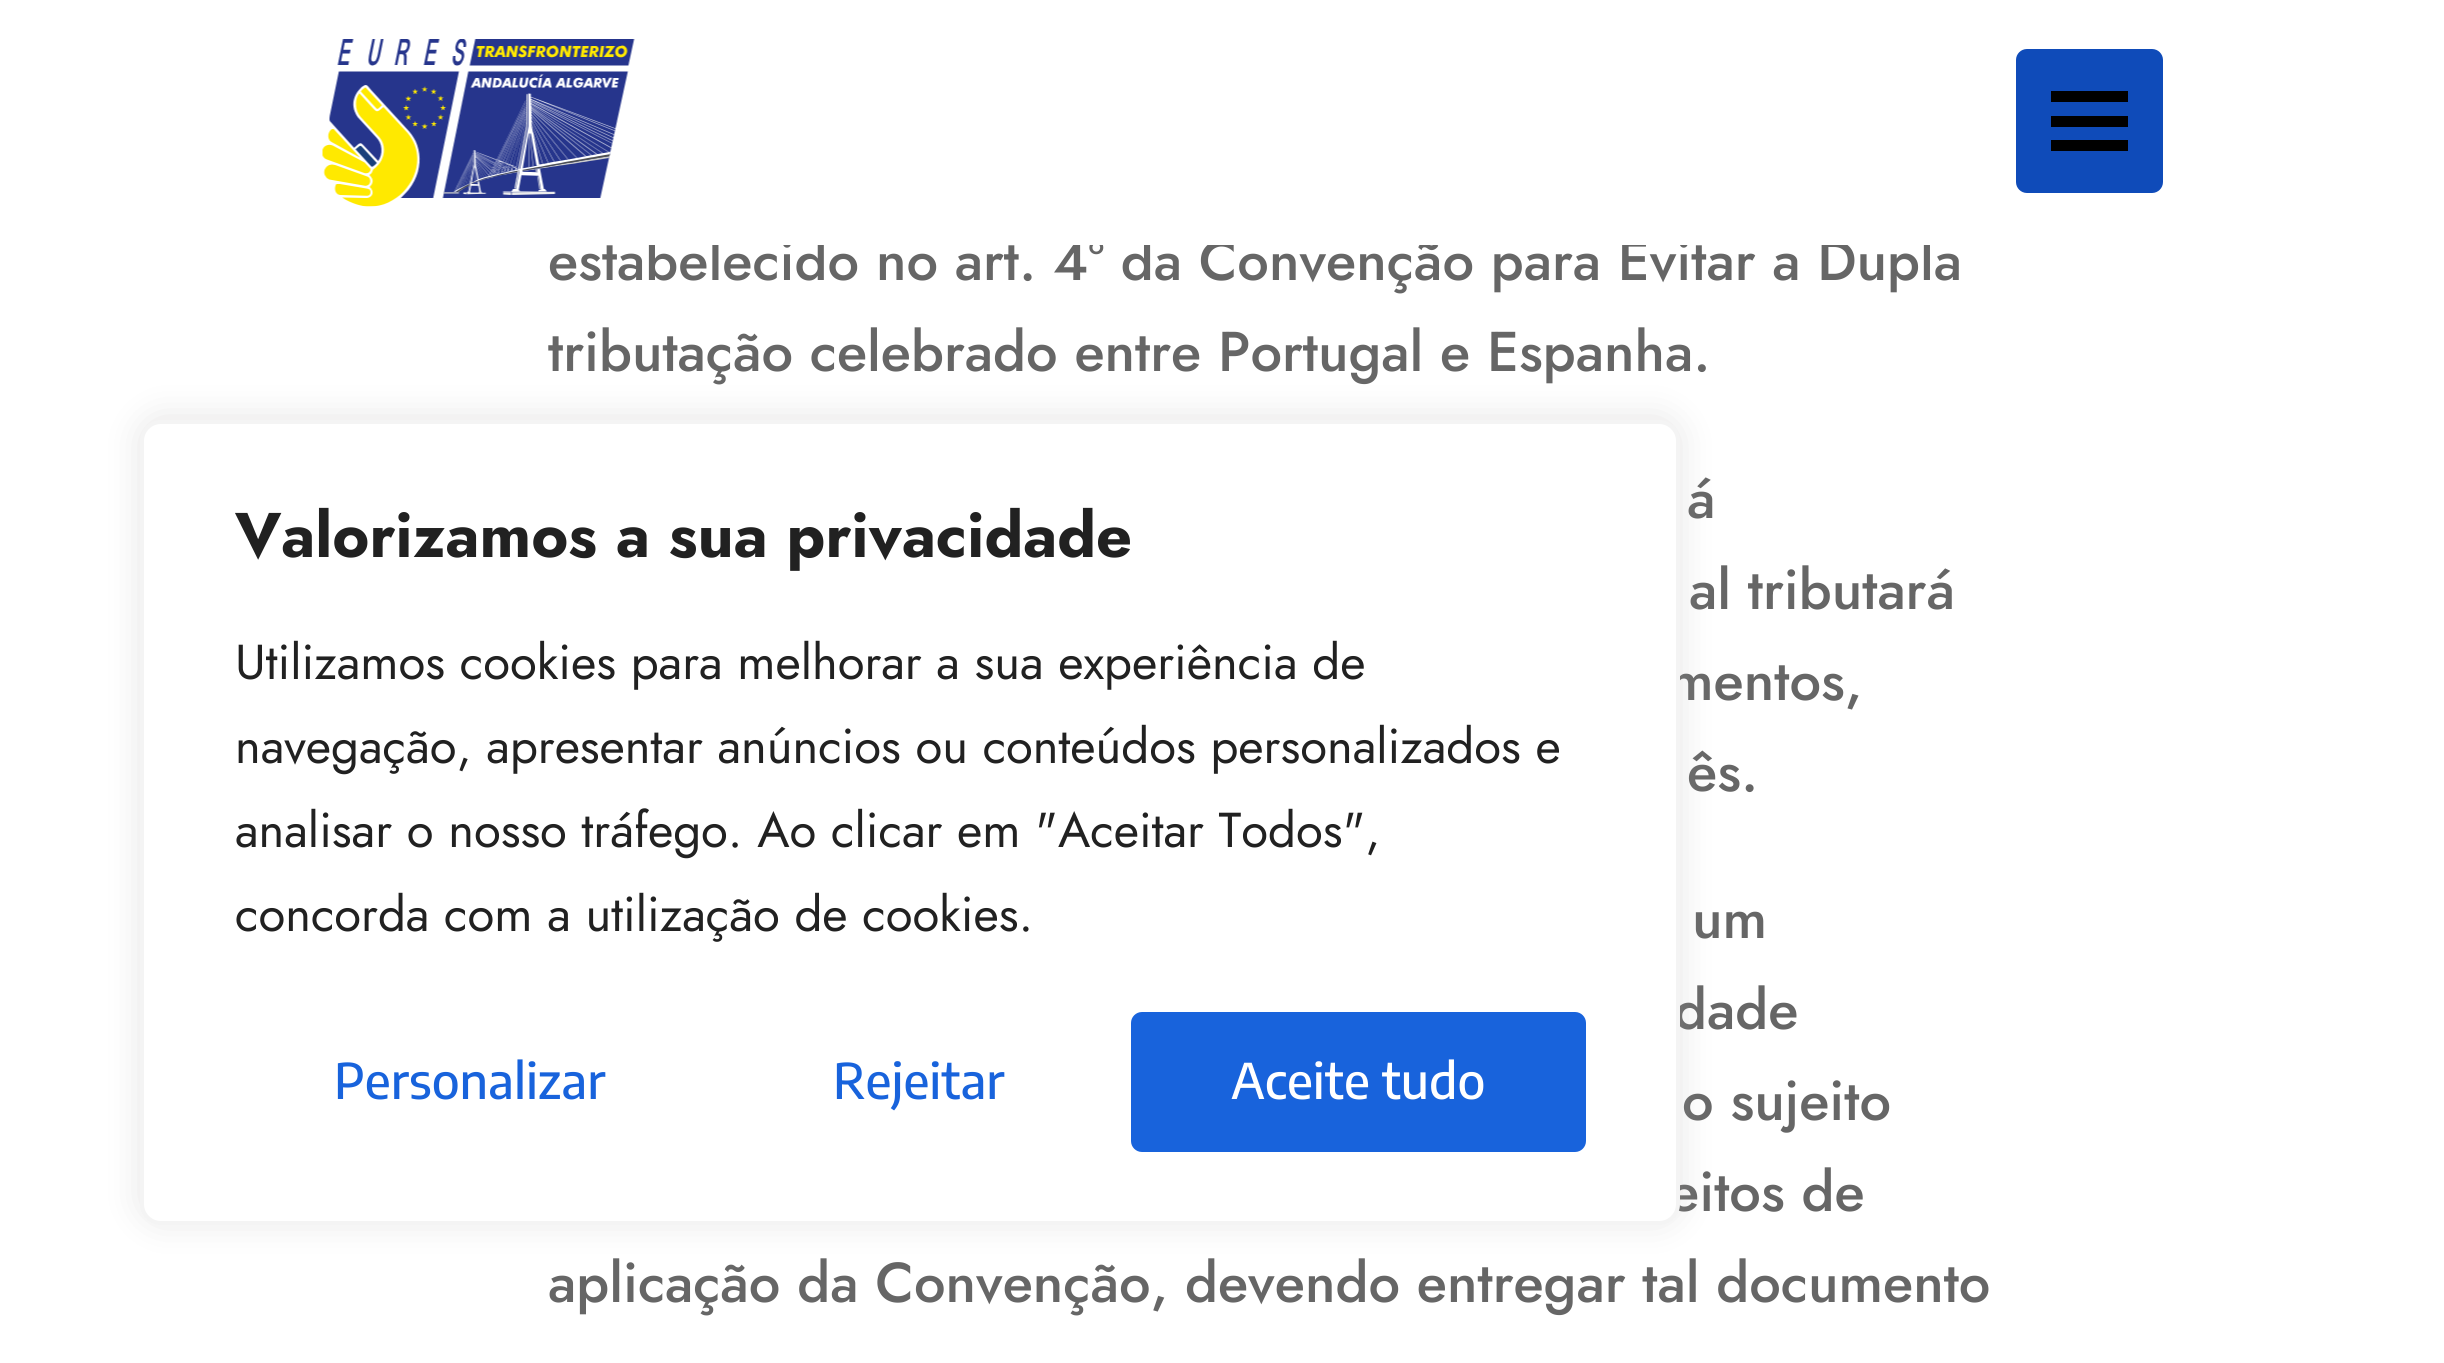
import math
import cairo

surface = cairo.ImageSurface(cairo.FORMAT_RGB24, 2444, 1363)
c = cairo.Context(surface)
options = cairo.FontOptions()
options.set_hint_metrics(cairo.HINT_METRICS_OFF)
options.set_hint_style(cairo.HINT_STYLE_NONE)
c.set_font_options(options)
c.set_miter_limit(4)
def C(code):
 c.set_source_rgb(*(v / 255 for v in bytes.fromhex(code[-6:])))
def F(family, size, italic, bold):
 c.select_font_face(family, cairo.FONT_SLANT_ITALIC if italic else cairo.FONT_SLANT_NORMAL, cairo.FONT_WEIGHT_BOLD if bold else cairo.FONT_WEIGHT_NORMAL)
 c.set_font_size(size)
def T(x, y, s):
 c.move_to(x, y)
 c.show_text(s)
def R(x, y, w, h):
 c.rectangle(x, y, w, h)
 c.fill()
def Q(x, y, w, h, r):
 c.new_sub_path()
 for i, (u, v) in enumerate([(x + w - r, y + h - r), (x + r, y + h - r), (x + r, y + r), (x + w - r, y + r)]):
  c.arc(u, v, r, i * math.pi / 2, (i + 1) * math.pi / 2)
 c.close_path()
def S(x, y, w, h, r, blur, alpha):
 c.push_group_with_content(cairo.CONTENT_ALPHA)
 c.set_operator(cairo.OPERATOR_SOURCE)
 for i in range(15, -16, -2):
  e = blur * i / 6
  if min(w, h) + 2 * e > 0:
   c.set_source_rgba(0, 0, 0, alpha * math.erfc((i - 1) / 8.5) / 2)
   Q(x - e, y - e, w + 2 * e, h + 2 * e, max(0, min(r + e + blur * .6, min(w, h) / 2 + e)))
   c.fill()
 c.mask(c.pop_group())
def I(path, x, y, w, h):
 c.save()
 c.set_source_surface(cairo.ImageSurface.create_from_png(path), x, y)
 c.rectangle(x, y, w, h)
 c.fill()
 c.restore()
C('ffffff')
c.paint()
F('Jost Medium',56,0,0)
C('666666')
T(548,280,'estabelecido no art. 4º da Convenção para Evitar a Dupla')
C('ffffff')
R(648,236,1282,9)
I('1.png',322,39,313,168)
C('0f4bb9')
Q(2016,49,147,144,11)
c.fill()
C('000000')
R(2051,91,77,11)
R(2051,116,77,11)
R(2051,140,77,11)
C('666666')
T(548,371,'tributação celebrado entre Portugal e Espanha.')
T(1687,518,'á')
T(1689,609,'al tributará')
T(1669,700,'mentos,')
T(1687,791,'ês.')
T(1692,938,'um')
T(1674,1029,'dade')
T(1682,1120,'o sujeito')
T(1669,1211,'eitos de')
T(548,1302,'aplicação da Convenção, devendo entregar tal documento')
C('acabab')
S(140,417,1540,805,21,17.5,.3)
C('ffffff')
Q(142,422,1536,801,19)
c.fill_preserve()
C('f4f4f4')
c.set_line_width(4)
c.stroke()
F('Jost',63,0,1)
C('212121')
T(235,557,'Valorizamos a sua privacidade')
F('Jost',49,0,0)
T(235,679,'Utilizamos cookies para melhorar a sua experiência de')
T(235,763,'navegação, apresentar anúncios ou conteúdos personalizados e')
T(235,847,'analisar o nosso tráfego. Ao clicar em "Aceitar Todos",')
T(235,931,'concorda com a utilização de cookies.')
F('Encode Sans Condensed Medium',49,0,0)
C('1863dc')
T(334,1099,'Personalizar')
T(833,1099,'Rejeitar')
Q(1131,1012,455,140,11)
c.fill()
C('ffffff')
T(1231,1099,'Aceite tudo')
surface.write_to_png('o.png')
